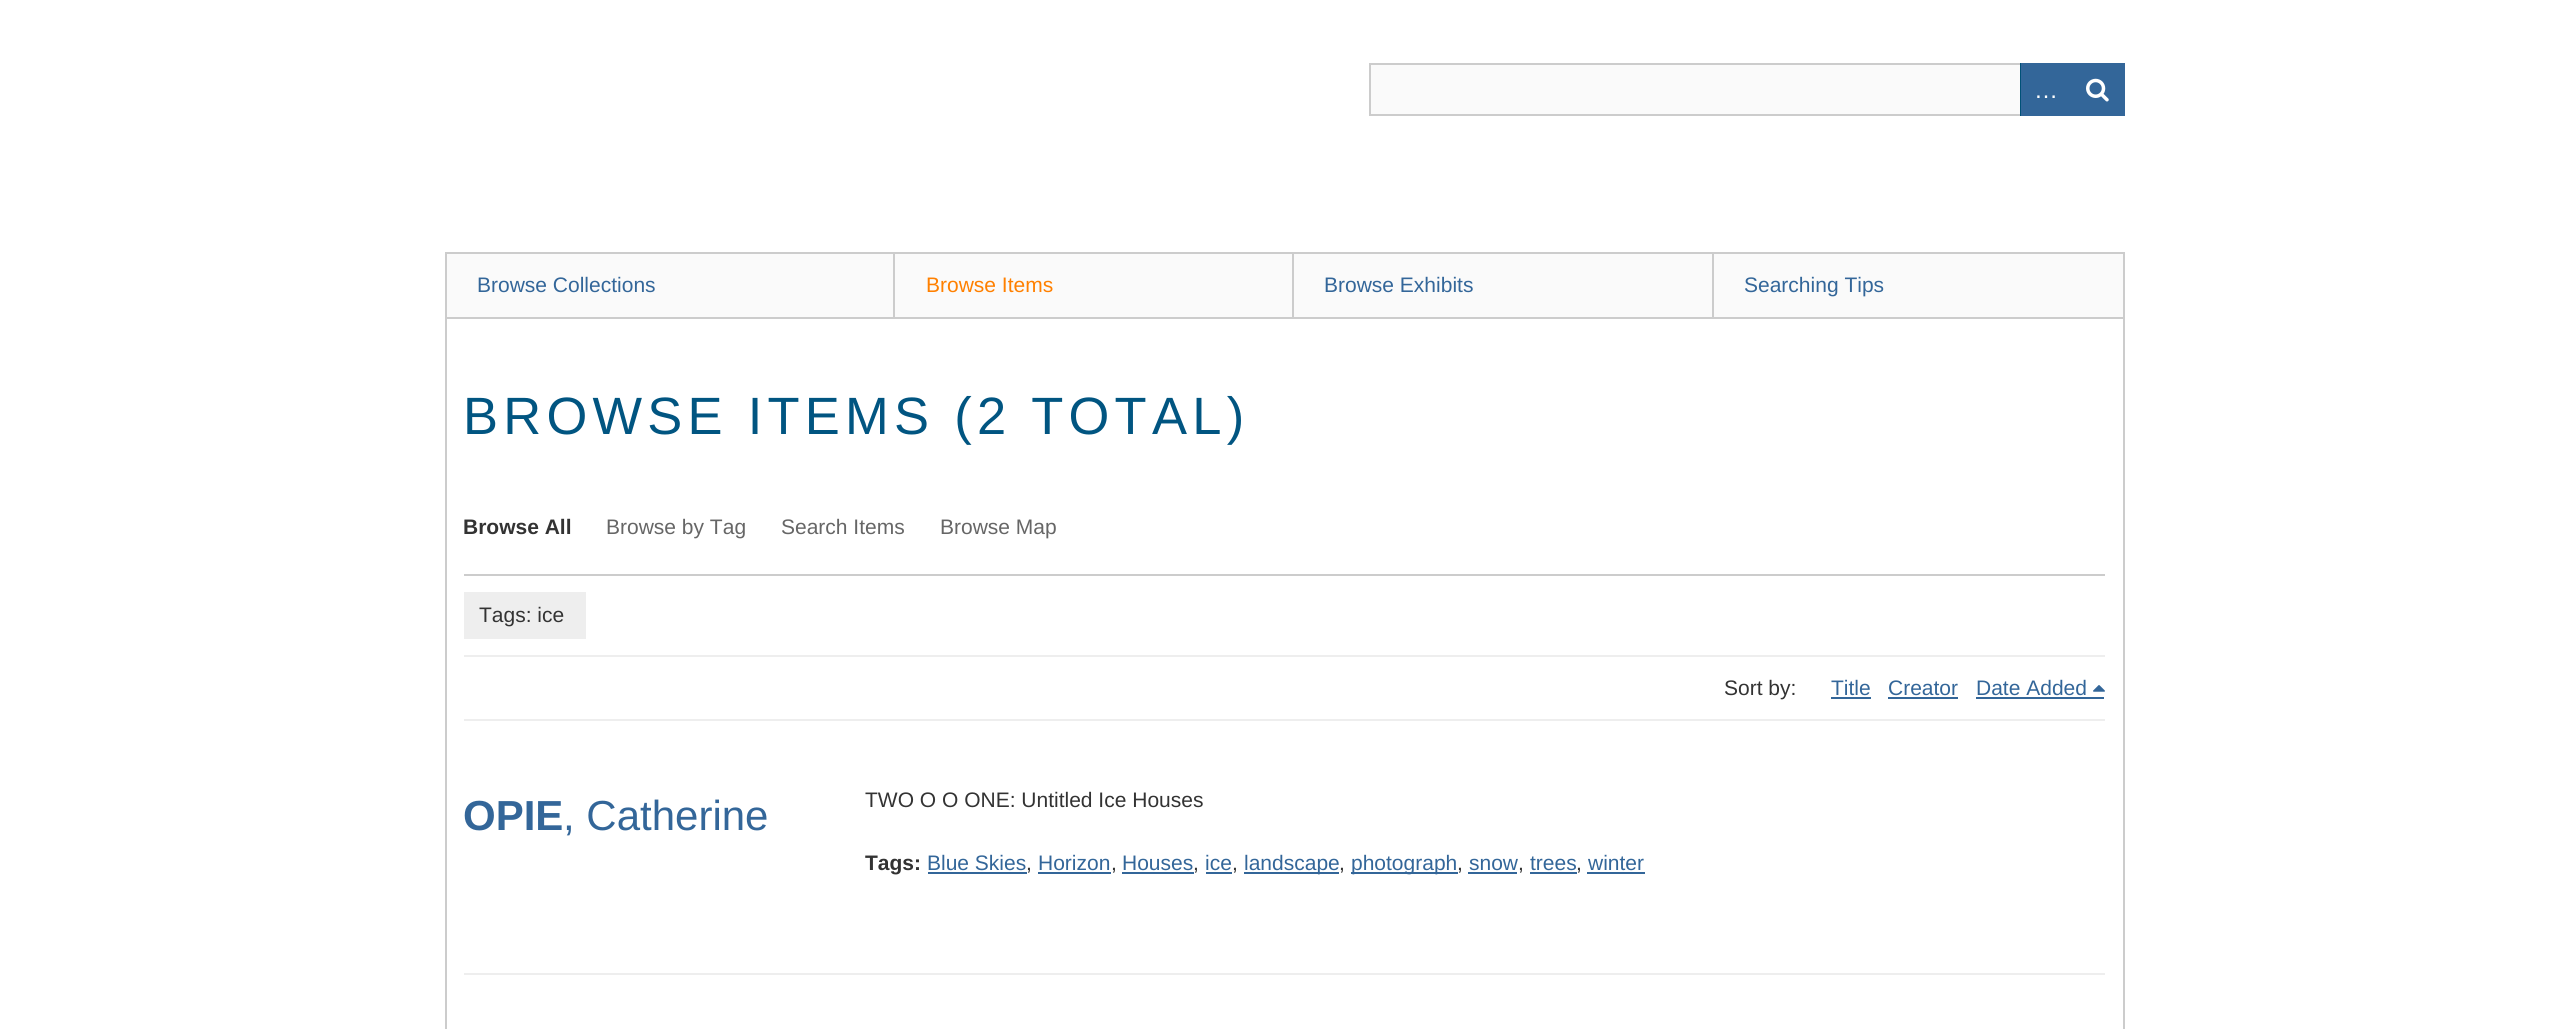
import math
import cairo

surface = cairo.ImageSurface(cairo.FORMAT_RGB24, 2567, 1029)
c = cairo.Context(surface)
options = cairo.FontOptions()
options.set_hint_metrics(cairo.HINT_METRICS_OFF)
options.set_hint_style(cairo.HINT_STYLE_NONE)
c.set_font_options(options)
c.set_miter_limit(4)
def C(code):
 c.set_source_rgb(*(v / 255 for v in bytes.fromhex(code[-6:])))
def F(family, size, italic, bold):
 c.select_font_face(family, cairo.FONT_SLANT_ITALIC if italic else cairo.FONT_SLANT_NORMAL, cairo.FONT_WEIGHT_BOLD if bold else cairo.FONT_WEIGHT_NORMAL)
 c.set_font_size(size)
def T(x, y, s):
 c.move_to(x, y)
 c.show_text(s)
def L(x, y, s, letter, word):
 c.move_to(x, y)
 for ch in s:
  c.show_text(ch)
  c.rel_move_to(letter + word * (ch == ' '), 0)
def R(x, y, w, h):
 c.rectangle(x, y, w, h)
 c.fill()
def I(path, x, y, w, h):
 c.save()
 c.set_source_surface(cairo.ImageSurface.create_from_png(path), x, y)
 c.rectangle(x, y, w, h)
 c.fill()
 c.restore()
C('ffffff')
c.paint()
C('fafafa')
R(1371,65,649,49)
c.rectangle(1370,64,754,51)
C('cccccc')
c.stroke()
C('005177')
R(2020,63,1,53)
C('336699')
R(2021,63,104,53)
F('Liberation Sans',24,0,0)
C('ffffff')
T(2034,98,'…')
I('1.png',2086,78,23,24)
C('cccccc')
R(2123,252,2,65)
C('fafafa')
R(447,254,446,63)
C('cccccc')
R(445,252,448,2)
R(445,252,2,65)
F('Liberation Sans',21,0,0)
C('336699')
T(477,292,'Browse Collections')
C('fafafa')
R(895,254,397,63)
C('cccccc')
R(893,252,1230,2)
R(893,252,2,65)
C('ff8000')
T(926,292,'Browse Items')
C('fafafa')
R(1294,254,418,63)
C('cccccc')
R(1292,252,2,65)
C('336699')
T(1324,292,'Browse Exhibits')
C('fafafa')
R(1714,254,409,63)
C('cccccc')
R(1712,252,2,65)
C('336699')
T(1744,292,'Searching Tips')
c.rectangle(446,318,1678,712)
C('cccccc')
c.stroke()
F('Liberation Sans',52.5,0,0)
C('015581')
L(463,434,'BROWSE ITEMS (2 TOTAL)',5.25,0)
C('cccccc')
R(464,574,1641,2)
F('Liberation Sans',21,0,1)
C('333333')
T(463,534,'Browse All')
F('Liberation Sans',21,0,0)
C('666666')
T(606,534,'Browse by Tag')
T(781,534,'Search Items')
T(940,534,'Browse Map')
C('eeeeee')
R(464,655,1641,2)
R(464,592,122,47)
C('333333')
T(479,622,'Tags: ice')
T(1724,695,'Sort by:')
C('336699')
T(1831,695,'Title')
R(1831,697,40,2)
T(1888,695,'Creator')
R(1888,697,70,2)
T(1976,695,'Date Added')
R(1976,697,128,2)
I('2.png',2093,685,12,7)
C('eeeeee')
R(464,719,1641,2)
R(464,973,1641,2)
F('Liberation Sans',42,0,1)
C('336699')
T(463,830,'OPIE')
F('Liberation Sans',42,0,0)
T(563,830,', Catherine')
F('Liberation Sans',21,0,0)
C('333333')
T(865,807,'TWO O O ONE: Untitled Ice Houses')
F('Liberation Sans',21,0,1)
T(865,870,'Tags:')
F('Liberation Sans',21,0,0)
C('336699')
T(927,870,'Blue Skies')
R(928,872,99,2)
C('333333')
T(1026,870,',')
C('336699')
T(1038,870,'Horizon')
R(1038,872,73,2)
C('333333')
T(1111,870,',')
C('336699')
T(1122,870,'Houses')
R(1122,872,72,2)
C('333333')
T(1193,870,',')
C('336699')
T(1205,870,'ice')
R(1206,872,26,2)
C('333333')
T(1232,870,',')
C('336699')
R(1244,872,95,2)
T(1244,870,'landscape')
C('333333')
T(1339,870,',')
C('336699')
R(1351,872,107,2)
T(1351,870,'photograph')
C('333333')
T(1457,870,',')
C('336699')
T(1469,870,'snow')
R(1468,872,49,2)
C('333333')
T(1518,870,',')
C('336699')
T(1530,870,'trees')
R(1530,872,47,2)
C('333333')
T(1576,870,',')
C('336699')
T(1588,870,'winter')
R(1587,872,58,2)
surface.write_to_png('o.png')
